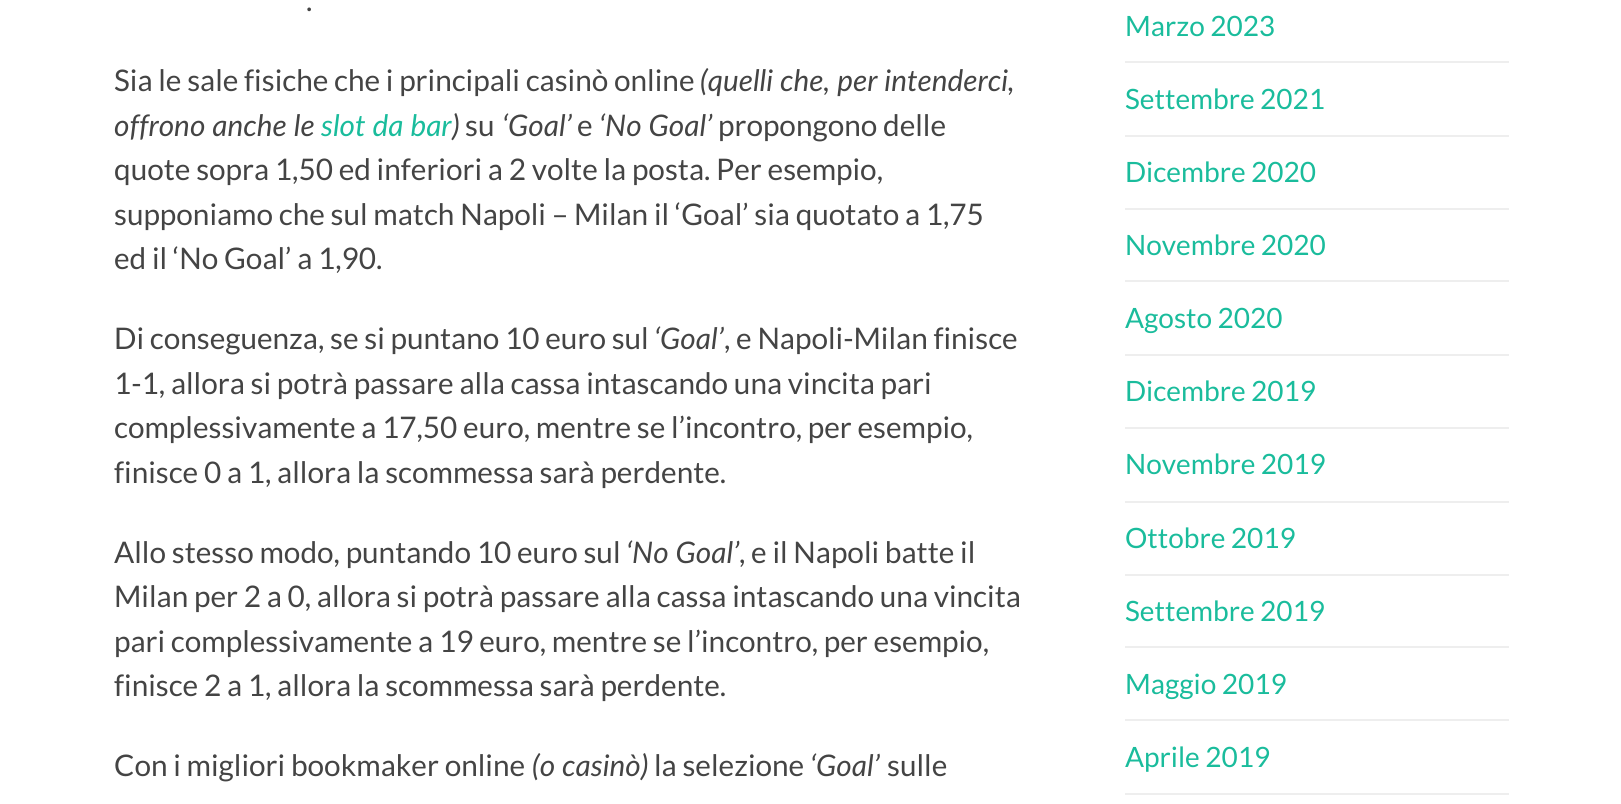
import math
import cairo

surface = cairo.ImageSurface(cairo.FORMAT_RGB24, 1621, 804)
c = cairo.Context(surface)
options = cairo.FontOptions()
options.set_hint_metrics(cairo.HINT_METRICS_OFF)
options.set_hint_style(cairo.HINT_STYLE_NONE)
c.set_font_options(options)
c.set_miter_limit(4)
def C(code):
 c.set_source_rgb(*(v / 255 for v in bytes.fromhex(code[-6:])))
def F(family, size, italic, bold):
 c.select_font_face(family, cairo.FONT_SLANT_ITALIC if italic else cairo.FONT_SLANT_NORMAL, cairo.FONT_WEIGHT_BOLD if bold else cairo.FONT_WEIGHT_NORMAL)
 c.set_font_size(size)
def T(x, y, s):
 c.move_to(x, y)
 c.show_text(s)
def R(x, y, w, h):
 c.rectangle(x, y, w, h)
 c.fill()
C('ffffff')
c.paint()
F('Lato',29.75,0,0)
C('444444')
T(306,11,'.')
T(114,91,'Sia le sale fisiche che i principali casinò online')
F('Lato',29.75,1,0)
T(700,91,'(quelli che, per intenderci,')
T(114,136,'offrono anche le')
C('1abc9c')
T(321,136,'slot da bar')
C('444444')
T(452,136,')')
F('Lato',29.75,0,0)
T(465,136,'su')
F('Lato',29.75,1,0)
T(502,136,'‘Goal’')
F('Lato',29.75,0,0)
T(577,136,'e')
F('Lato',29.75,1,0)
T(599,136,'‘No Goal’')
F('Lato',29.75,0,0)
T(718,136,'propongono delle')
T(114,180,'quote sopra 1,50 ed inferiori a 2 volte la posta. Per esempio,')
T(114,225,'supponiamo che sul match Napoli – Milan il ‘Goal’ sia quotato a 1,75')
T(114,269,'ed il ‘No Goal’ a 1,90.')
T(114,349,'Di conseguenza, se si puntano 10 euro sul')
F('Lato',29.75,1,0)
T(654,349,'‘Goal’')
F('Lato',29.75,0,0)
T(724,349,', e Napoli-Milan finisce')
T(114,394,'1-1, allora si potrà passare alla cassa intascando una vincita pari')
T(114,438,'complessivamente a 17,50 euro, mentre se l’incontro, per esempio,')
T(114,483,'finisce 0 a 1, allora la scommessa sarà perdente.')
T(114,563,'Allo stesso modo, puntando 10 euro sul')
F('Lato',29.75,1,0)
T(626,563,'‘No Goal’')
F('Lato',29.75,0,0)
T(739,563,', e il Napoli batte il')
T(114,607,'Milan per 2 a 0, allora si potrà passare alla cassa intascando una vincita')
T(114,652,'pari complessivamente a 19 euro, mentre se l’incontro, per esempio,')
T(114,696,'finisce 2 a 1, allora la scommessa sarà perdente.')
T(114,776,'Con i migliori bookmaker online')
F('Lato',29.75,1,0)
T(532,776,'(o casinò)')
F('Lato',29.75,0,0)
T(654,776,'la selezione')
F('Lato',29.75,1,0)
T(810,776,'‘Goal’')
F('Lato',29.75,0,0)
T(887,776,'sulle')
F('Lato',28,0,0)
C('1abc9c')
T(1125,36,'Marzo 2023')
C('eeeeee')
R(1125,61,384,2)
C('1abc9c')
T(1125,109,'Settembre 2021')
C('eeeeee')
R(1125,135,384,2)
C('1abc9c')
T(1125,182,'Dicembre 2020')
C('eeeeee')
R(1125,208,384,2)
C('1abc9c')
T(1125,255,'Novembre 2020')
C('eeeeee')
R(1125,280,384,2)
C('1abc9c')
T(1125,328,'Agosto 2020')
C('eeeeee')
R(1125,354,384,2)
C('1abc9c')
T(1125,401,'Dicembre 2019')
C('eeeeee')
R(1125,427,384,2)
C('1abc9c')
T(1125,474,'Novembre 2019')
C('eeeeee')
R(1125,501,384,2)
C('1abc9c')
T(1125,548,'Ottobre 2019')
C('eeeeee')
R(1125,574,384,2)
C('1abc9c')
T(1125,621,'Settembre 2019')
C('eeeeee')
R(1125,646,384,2)
C('1abc9c')
T(1125,694,'Maggio 2019')
C('eeeeee')
R(1125,719,384,2)
C('1abc9c')
T(1125,767,'Aprile 2019')
C('eeeeee')
R(1125,793,384,2)
surface.write_to_png('o.png')
